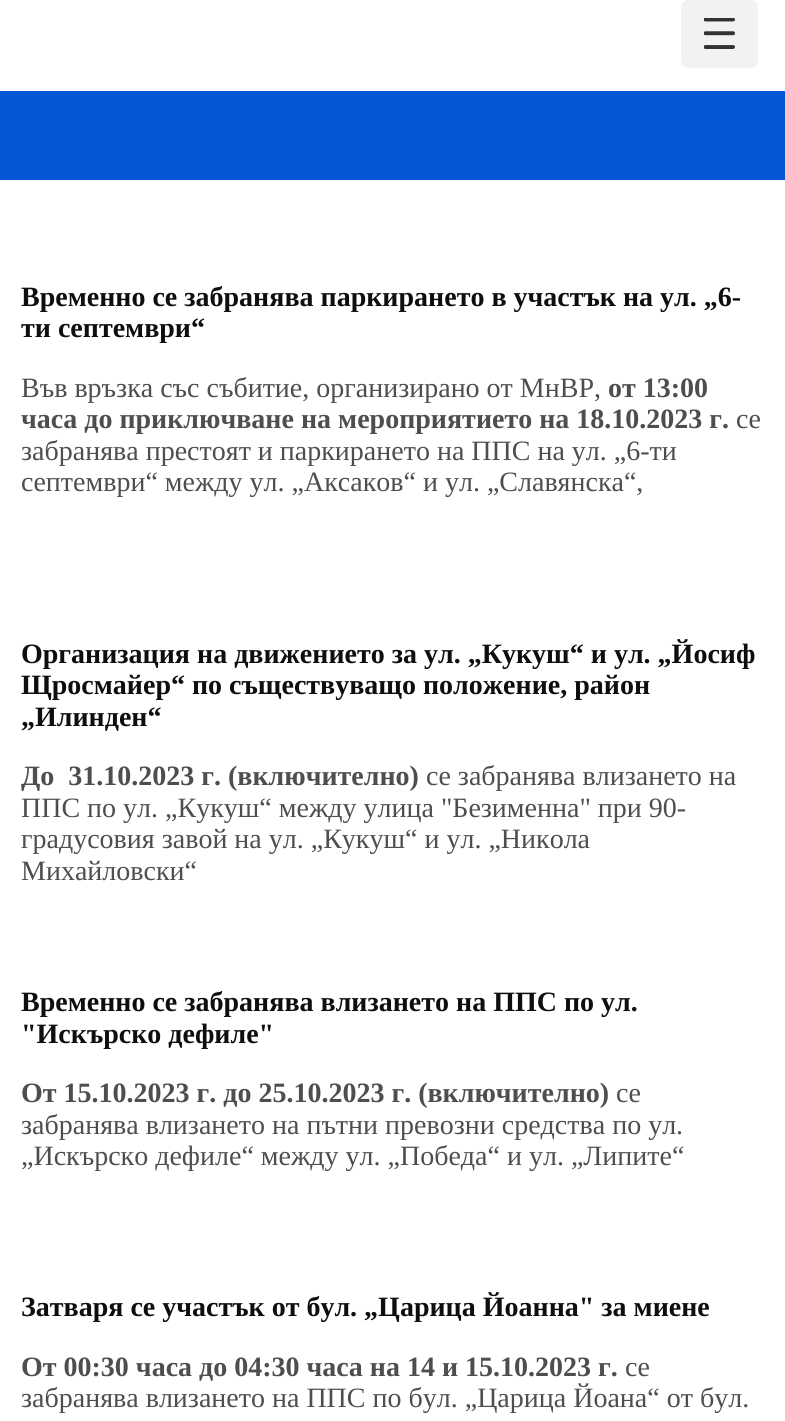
import math
import cairo

surface = cairo.ImageSurface(cairo.FORMAT_RGB24, 785, 1421)
c = cairo.Context(surface)
options = cairo.FontOptions()
options.set_hint_metrics(cairo.HINT_METRICS_OFF)
options.set_hint_style(cairo.HINT_STYLE_NONE)
c.set_font_options(options)
c.set_miter_limit(4)
def C(code):
 c.set_source_rgb(*(v / 255 for v in bytes.fromhex(code[-6:])))
def F(family, size, italic, bold):
 c.select_font_face(family, cairo.FONT_SLANT_ITALIC if italic else cairo.FONT_SLANT_NORMAL, cairo.FONT_WEIGHT_BOLD if bold else cairo.FONT_WEIGHT_NORMAL)
 c.set_font_size(size)
def T(x, y, s):
 c.move_to(x, y)
 c.show_text(s)
def R(x, y, w, h):
 c.rectangle(x, y, w, h)
 c.fill()
def Q(x, y, w, h, r):
 c.new_sub_path()
 for i, (u, v) in enumerate([(x + w - r, y + h - r), (x + r, y + h - r), (x + r, y + r), (x + w - r, y + r)]):
  c.arc(u, v, r, i * math.pi / 2, (i + 1) * math.pi / 2)
 c.close_path()
def I(path, x, y, w, h):
 c.save()
 c.set_source_surface(cairo.ImageSurface.create_from_png(path), x, y)
 c.rectangle(x, y, w, h)
 c.fill()
 c.restore()
C('ffffff')
c.paint()
C('0458d5')
R(0,91,785,89)
C('f2f2f2')
Q(681,0,77,68,7)
c.fill()
I('1.png',704,18,31,31)
F('Liberation Serif',28,0,1)
C('0e0e0e')
T(21,306,'Временно се забранява паркирането в участък на ул. „6-')
T(21,337,'ти септември“')
F('Liberation Serif',28,0,0)
C('4e4e4e')
T(21,397,'Във връзка със събитие, организирано от МнВР,')
F('Liberation Serif',28,0,1)
T(608,397,'от 13:00')
T(21,428,'часа до приключване на мероприятието на 18.10.2023 г.')
F('Liberation Serif',28,0,0)
T(736,428,'се')
T(21,460,'забранява престоят и паркирането на ППС на ул. „6-ти')
T(21,491,'септември“ между ул. „Аксаков“ и ул. „Славянска“,')
F('Liberation Serif',28,0,1)
C('0e0e0e')
T(21,663,'Организация на движението за ул. „Кукуш“ и ул. „Йосиф')
T(21,694,'Щросмайер“ по съществуващо положение, район')
T(21,726,'„Илинден“')
C('4e4e4e')
T(21,785,'До  31.10.2023 г. (включително)')
F('Liberation Serif',28,0,0)
T(426,785,'се забранява влизането на')
T(21,817,'ППС по ул. „Кукуш“ между улица "Безименна" при 90-')
T(21,848,'градусовия завой на ул. „Кукуш“ и ул. „Никола')
T(21,880,'Михайловски“')
F('Liberation Serif',28,0,1)
C('0e0e0e')
T(21,1011,'Временно се забранява влизането на ППС по ул.')
T(21,1043,'"Искърско дефиле"')
C('4e4e4e')
T(21,1102,'От 15.10.2023 г. до 25.10.2023 г. (включително)')
F('Liberation Serif',28,0,0)
T(616,1102,'се')
T(21,1134,'забранява влизането на пътни превозни средства по ул.')
T(21,1165,'„Искърско дефиле“ между ул. „Победа“ и ул. „Липите“')
F('Liberation Serif',28,0,1)
C('0e0e0e')
T(21,1316,'Затваря се участък от бул. „Царица Йоанна" за миене')
C('4e4e4e')
T(21,1376,'От 00:30 часа до 04:30 часа на 14 и 15.10.2023 г.')
F('Liberation Serif',28,0,0)
T(625,1376,'се')
T(21,1407,'забранява влизането на ППС по бул. „Царица Йоана“ от бул.')
surface.write_to_png('o.png')
